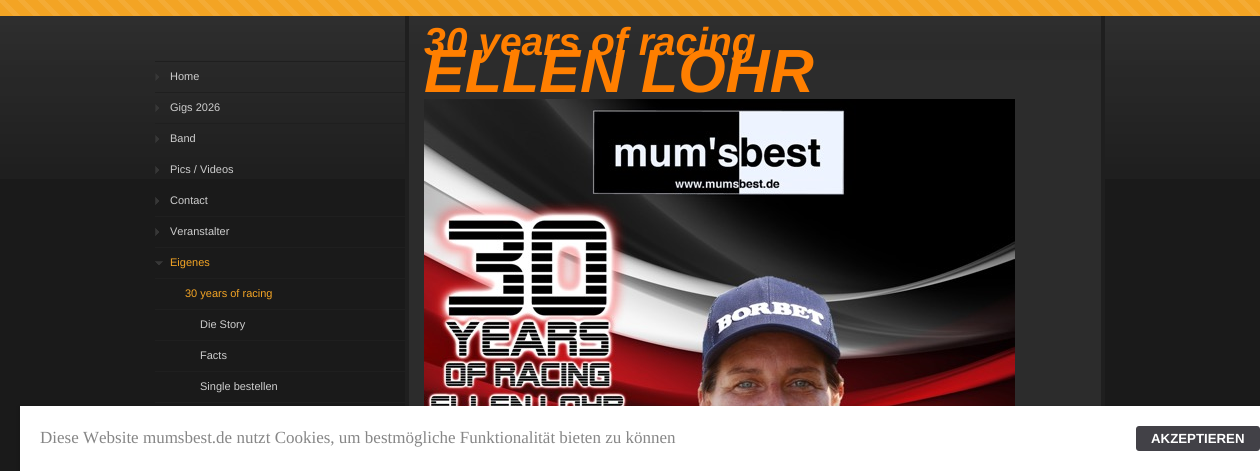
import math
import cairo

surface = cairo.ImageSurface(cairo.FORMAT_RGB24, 1260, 471)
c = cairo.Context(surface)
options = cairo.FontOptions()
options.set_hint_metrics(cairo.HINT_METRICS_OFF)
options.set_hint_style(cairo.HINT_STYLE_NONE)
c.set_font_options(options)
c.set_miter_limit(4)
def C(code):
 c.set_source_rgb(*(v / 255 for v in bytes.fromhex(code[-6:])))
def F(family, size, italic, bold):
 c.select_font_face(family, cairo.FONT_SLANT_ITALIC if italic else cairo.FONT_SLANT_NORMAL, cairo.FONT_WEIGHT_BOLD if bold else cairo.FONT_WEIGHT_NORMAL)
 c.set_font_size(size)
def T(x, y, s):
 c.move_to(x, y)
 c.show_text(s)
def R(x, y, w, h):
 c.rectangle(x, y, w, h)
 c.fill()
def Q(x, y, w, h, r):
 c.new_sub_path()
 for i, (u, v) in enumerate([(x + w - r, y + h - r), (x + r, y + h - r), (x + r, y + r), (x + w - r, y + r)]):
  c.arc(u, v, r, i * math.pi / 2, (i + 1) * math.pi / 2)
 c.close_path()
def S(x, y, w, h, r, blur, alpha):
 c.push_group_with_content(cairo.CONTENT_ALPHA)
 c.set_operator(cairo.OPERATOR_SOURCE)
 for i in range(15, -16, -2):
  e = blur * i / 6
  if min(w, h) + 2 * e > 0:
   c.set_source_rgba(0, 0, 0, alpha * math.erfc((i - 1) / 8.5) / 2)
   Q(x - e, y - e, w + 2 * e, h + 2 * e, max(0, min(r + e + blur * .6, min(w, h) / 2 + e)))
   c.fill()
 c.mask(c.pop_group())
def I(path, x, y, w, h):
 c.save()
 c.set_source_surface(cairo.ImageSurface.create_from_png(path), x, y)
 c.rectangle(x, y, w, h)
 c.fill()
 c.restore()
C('1a1a1a')
c.paint()
C('f3a424')
R(0,0,1260,16)
I('1.png',0,0,1260,16)
I('2.png',0,16,1260,163)
C('2c2c2c')
R(409,60,692,346)
C('1f1f1f')
R(1101,16,4,390)
R(405,16,4,390)
F('Liberation Sans',39,1,1)
C('ff7f00')
T(424,55,'30 years of racing')
F('Liberation Sans',61,1,1)
T(424,92,'ELLEN LOHR')
I('3.png',424,99,591,307)
C('1f1f1f')
R(155,61,250,1)
I('4.png',155,73,4,8)
R(155,92,250,1)
F('Liberation Sans',11,0,0)
C('cdcdcd')
T(170,80,'Home')
I('5.png',155,104,4,8)
C('1f1f1f')
R(155,123,250,1)
C('cdcdcd')
T(170,111,'Gigs 2026')
I('6.png',155,135,4,8)
T(170,142,'Band')
I('7.png',155,166,4,8)
T(170,173,'Pics / Videos')
I('8.png',155,197,4,8)
C('1f1f1f')
R(155,216,250,1)
C('cdcdcd')
T(170,204,'Contact')
I('8.png',155,228,4,8)
C('1f1f1f')
R(155,247,250,1)
C('cdcdcd')
T(170,235,'Veranstalter')
I('9.png',155,261,8,4)
C('1f1f1f')
R(155,278,250,1)
C('f3a424')
T(170,266,'Eigenes')
C('1f1f1f')
R(155,309,250,1)
C('f3a424')
T(185,297,'30 years of racing')
C('1f1f1f')
R(155,340,250,1)
C('cdcdcd')
T(200,328,'Die Story')
C('1f1f1f')
R(155,371,250,1)
C('cdcdcd')
T(200,359,'Facts')
C('1f1f1f')
R(155,402,250,1)
C('cdcdcd')
T(200,390,'Single bestellen')
C('000000')
S(18,406,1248,65,0,2,.1)
C('ffffff')
R(20,406,1240,65)
F('Liberation Serif',17,0,0)
C('868686')
T(40,443,'Diese Website mumsbest.de nutzt Cookies, um bestmögliche Funktionalität bieten zu können')
C('424147')
Q(1136,426,124,25,3)
c.fill()
F('Liberation Sans',13.25,0,1)
C('ffffff')
T(1151,443,'AKZEPTIEREN')
surface.write_to_png('o.png')
